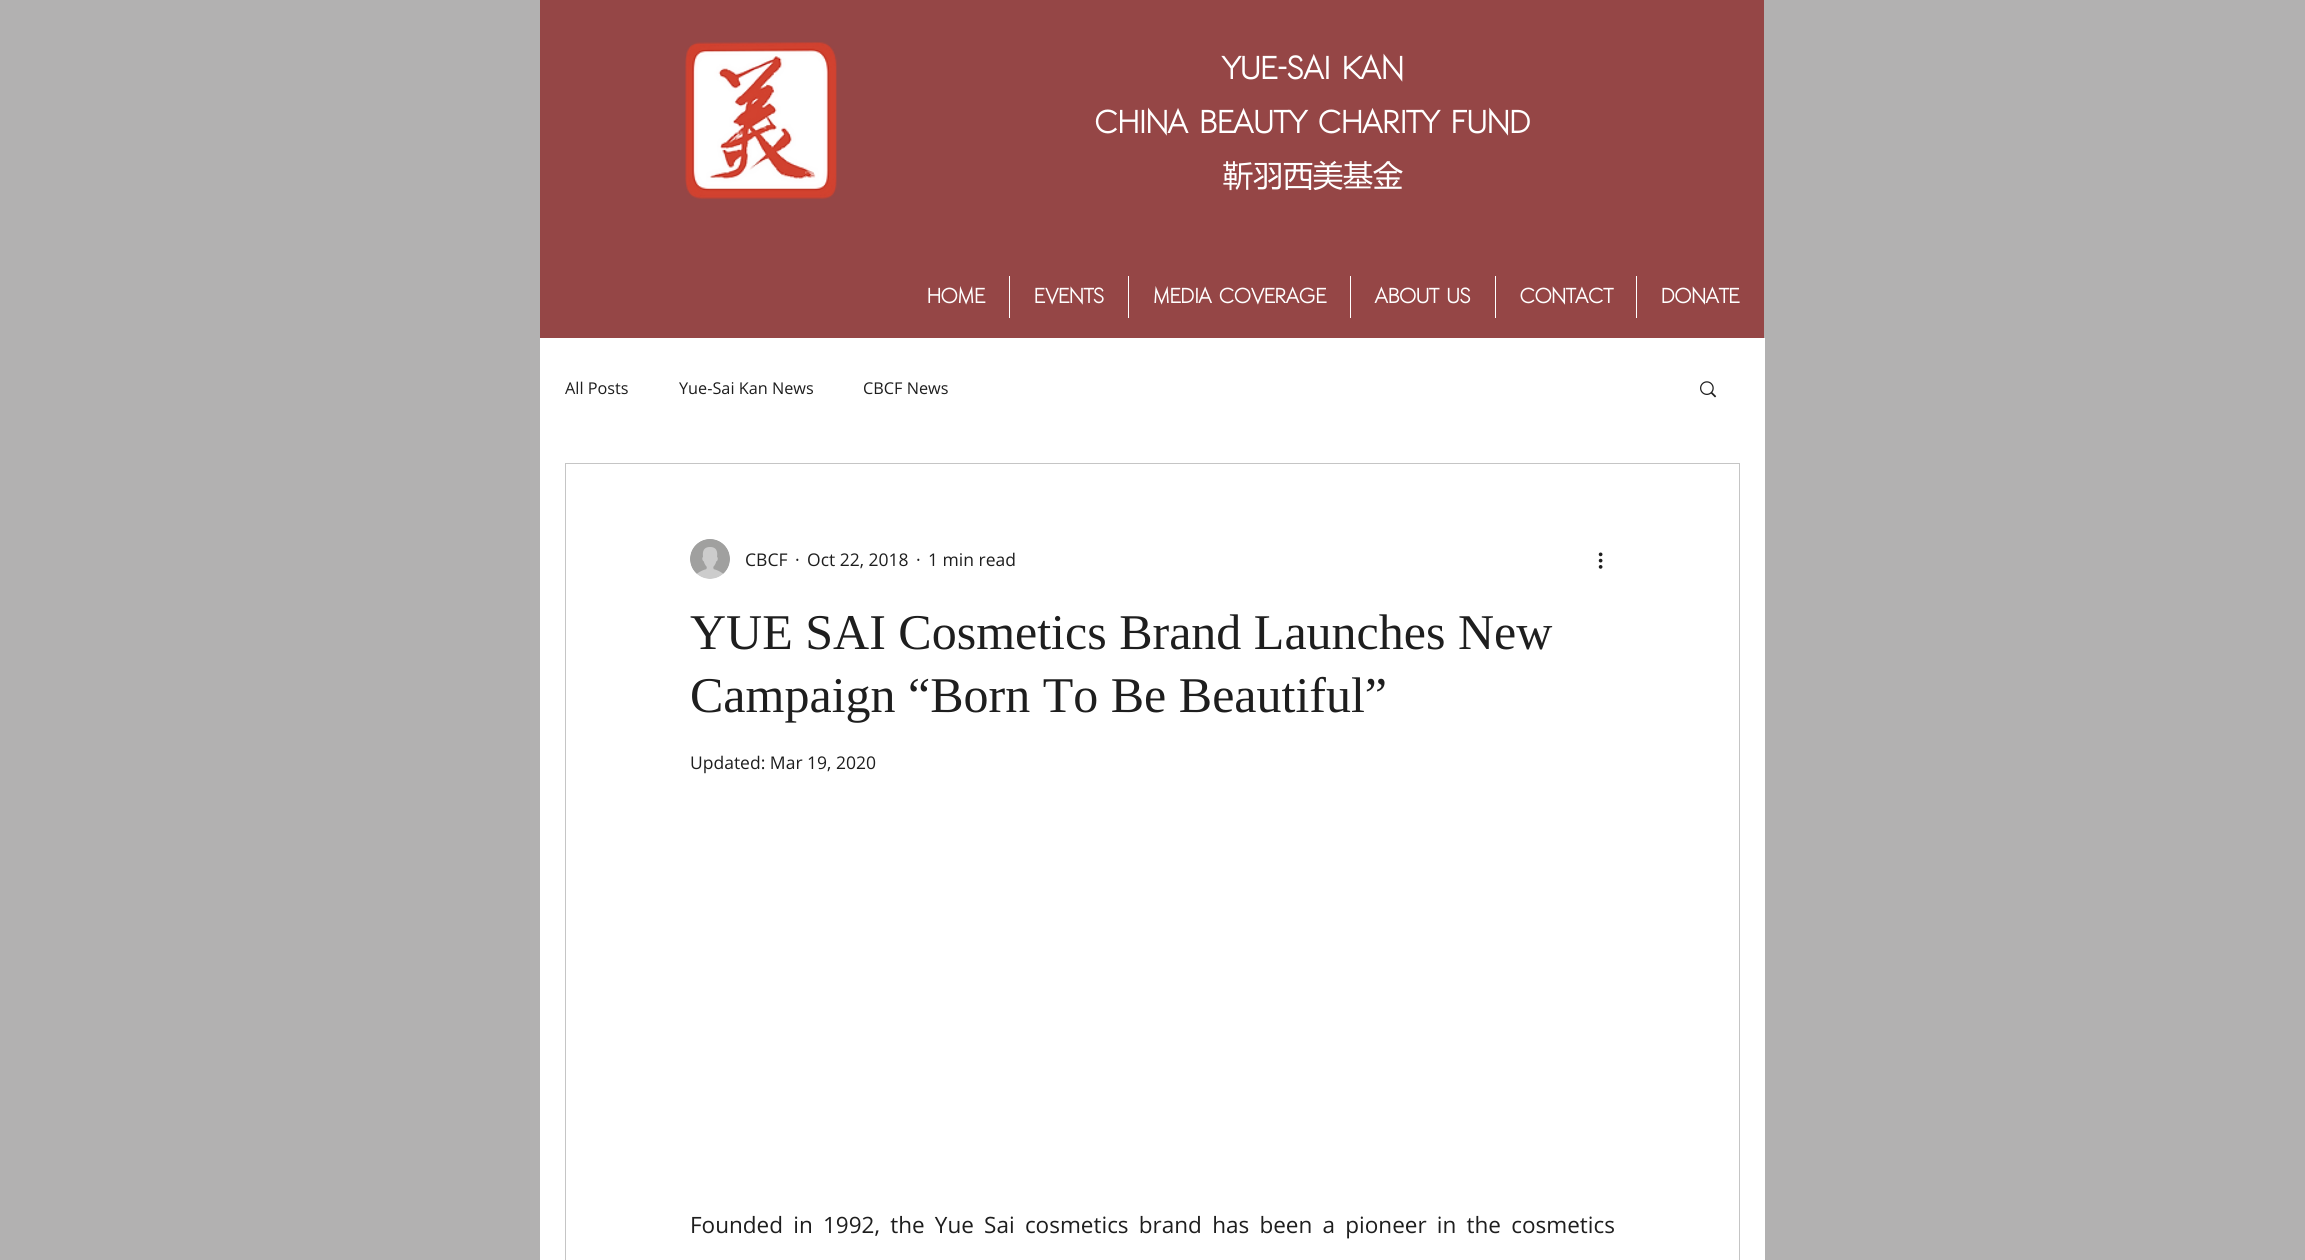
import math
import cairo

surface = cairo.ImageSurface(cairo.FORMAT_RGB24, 2305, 1260)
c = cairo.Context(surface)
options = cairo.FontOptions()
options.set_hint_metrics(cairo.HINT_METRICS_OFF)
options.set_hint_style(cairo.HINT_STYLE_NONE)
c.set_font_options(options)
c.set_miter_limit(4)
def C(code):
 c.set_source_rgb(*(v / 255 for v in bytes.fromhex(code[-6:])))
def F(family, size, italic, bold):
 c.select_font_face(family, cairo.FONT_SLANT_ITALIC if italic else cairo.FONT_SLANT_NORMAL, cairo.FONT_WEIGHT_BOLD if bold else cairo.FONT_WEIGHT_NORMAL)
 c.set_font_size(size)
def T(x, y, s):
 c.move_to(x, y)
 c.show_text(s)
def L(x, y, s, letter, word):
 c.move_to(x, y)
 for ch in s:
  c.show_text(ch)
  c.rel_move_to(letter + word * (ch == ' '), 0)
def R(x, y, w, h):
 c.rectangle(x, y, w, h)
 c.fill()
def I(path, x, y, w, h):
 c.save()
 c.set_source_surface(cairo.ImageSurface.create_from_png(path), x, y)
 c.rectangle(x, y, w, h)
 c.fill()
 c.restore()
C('b2b1b1')
c.paint()
C('954646')
R(540,0,1224,338)
I('1.png',685,42,152,157)
F('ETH',36.25,0,1)
C('ffffff')
T(1222,79,'Yue-Sai Kan')
T(1095,133,'China Beauty Charity Fund')
F('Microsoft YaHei',30,0,0)
T(1223,186,'靳羽西美基金')
F('ETH',23.75,0,1)
T(927,303,'Home')
R(1009,276,1,42)
T(1034,303,'Events')
R(1128,276,1,42)
T(1153,303,'Media Coverage')
R(1350,276,1,42)
T(1375,303,'About Us')
R(1495,276,1,42)
T(1520,303,'Contact')
R(1636,276,1,42)
T(1661,303,'Donate')
R(540,338,1225,922)
F('Open Sans',16.25,0,0)
C('1e1e1e')
T(565,394,'All Posts')
T(679,394,'Yue-Sai Kan News')
T(863,394,'CBCF News')
I('2.png',1700,381,17,17)
c.rectangle(565.5,463.5,1174,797)
C('c5c5c5')
c.set_line_width(1)
c.stroke()
I('3.png',690,539,40,40)
F('Open Sans',17.5,0,0)
C('1e1e1e')
T(745,566,'CBCF')
T(795,566,'·')
T(807,566,'Oct 22, 2018')
T(916,566,'·')
T(928,566,'1 min read')
I('4.png',1598,552,5,17)
F('Liberation Serif',50,0,0)
T(690,649,'YUE SAI Cosmetics Brand Launches New')
T(690,712,'Campaign “Born To Be Beautiful”')
F('Open Sans',17.5,0,0)
T(690,769,'Updated: Mar 19, 2020')
F('Open Sans',22.5,0,0)
L(690,1233,'Founded in 1992, the Yue Sai cosmetics brand has been a pioneer in the cosmetics',0,4.4)
surface.write_to_png('o.png')
